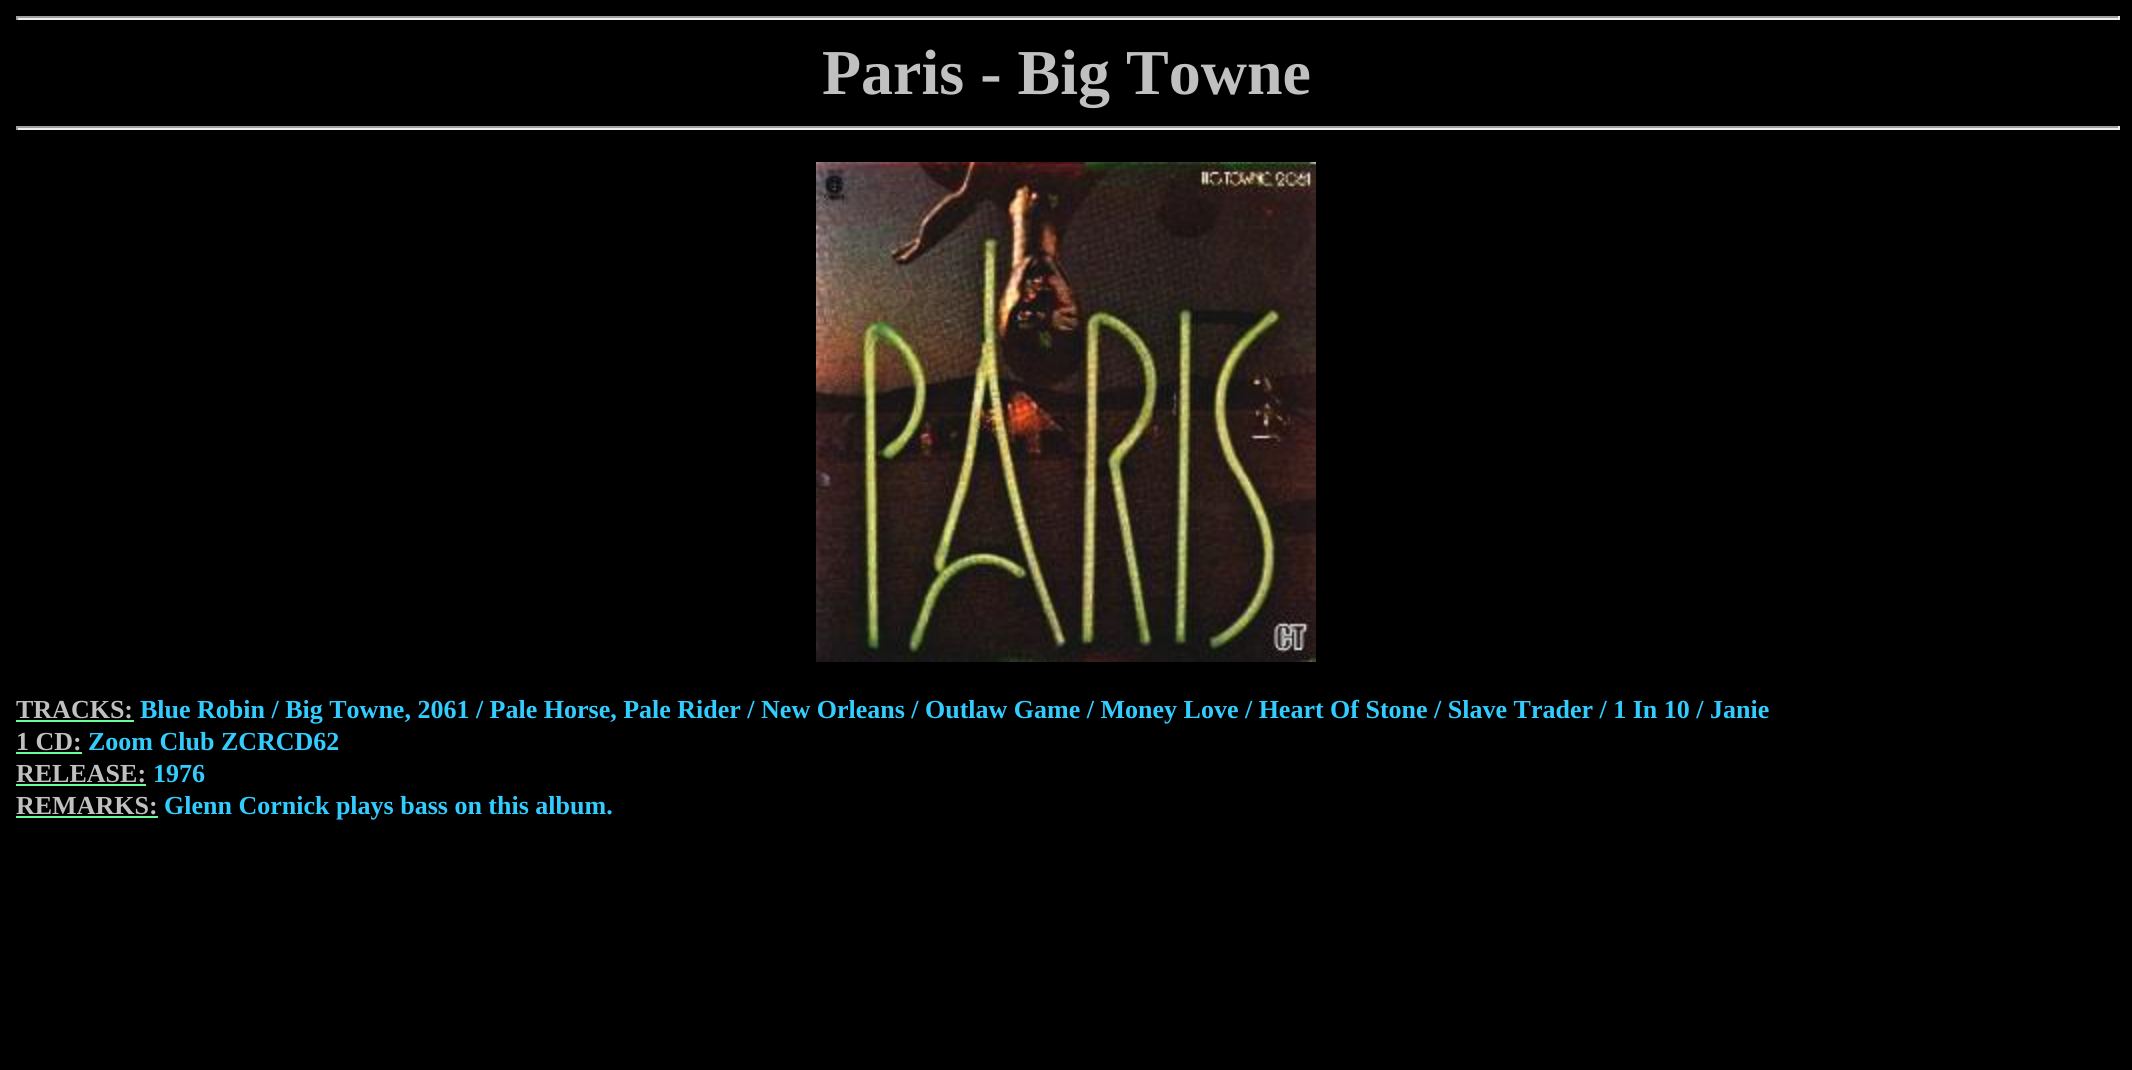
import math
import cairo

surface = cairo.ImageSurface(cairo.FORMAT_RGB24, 2132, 1070)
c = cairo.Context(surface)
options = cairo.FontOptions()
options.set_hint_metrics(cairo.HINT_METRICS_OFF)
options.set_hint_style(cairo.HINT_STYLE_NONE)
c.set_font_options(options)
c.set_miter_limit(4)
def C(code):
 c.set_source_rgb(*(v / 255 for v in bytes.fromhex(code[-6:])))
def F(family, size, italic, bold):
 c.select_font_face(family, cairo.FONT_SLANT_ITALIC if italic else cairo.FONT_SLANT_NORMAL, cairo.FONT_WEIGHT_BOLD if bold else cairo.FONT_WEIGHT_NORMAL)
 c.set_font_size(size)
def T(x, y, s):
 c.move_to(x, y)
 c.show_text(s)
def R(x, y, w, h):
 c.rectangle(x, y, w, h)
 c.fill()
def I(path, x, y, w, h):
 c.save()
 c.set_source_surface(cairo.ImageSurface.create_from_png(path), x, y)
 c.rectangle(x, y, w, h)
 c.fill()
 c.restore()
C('000000')
c.paint()
C('9f9f9f')
R(16,16,2104,2)
C('eeeeee')
R(2118,16,2,4)
R(16,18,2104,2)
C('9f9f9f')
R(16,16,2,4)
F('Liberation Serif',64,0,1)
C('c0c0c0')
T(822,94,'Paris - Big Towne')
C('9f9f9f')
R(16,126,2104,2)
C('eeeeee')
R(2118,126,2,4)
R(16,128,2104,2)
C('9f9f9f')
R(16,126,2,4)
I('1.png',816,162,500,500)
F('Liberation Serif',26,0,1)
C('c0c0c0')
T(16,718,'TRACKS:')
C('66ff99')
R(16,720,118,2)
C('33ccff')
T(140,718,'Blue Robin / Big Towne, 2061 / Pale Horse, Pale Rider / New Orleans / Outlaw Game / Money Love / Heart Of Stone / Slave Trader / 1 In 10 / Janie')
C('c0c0c0')
T(16,750,'1 CD:')
C('66ff99')
R(16,752,66,2)
C('33ccff')
T(88,750,'Zoom Club ZCRCD62')
C('c0c0c0')
T(16,782,'RELEASE:')
C('66ff99')
R(16,784,130,2)
C('33ccff')
T(153,782,'1976')
C('c0c0c0')
T(16,814,'REMARKS:')
C('66ff99')
R(16,816,142,2)
C('33ccff')
T(164,814,'Glenn Cornick plays bass on this album.')
surface.write_to_png('o.png')
